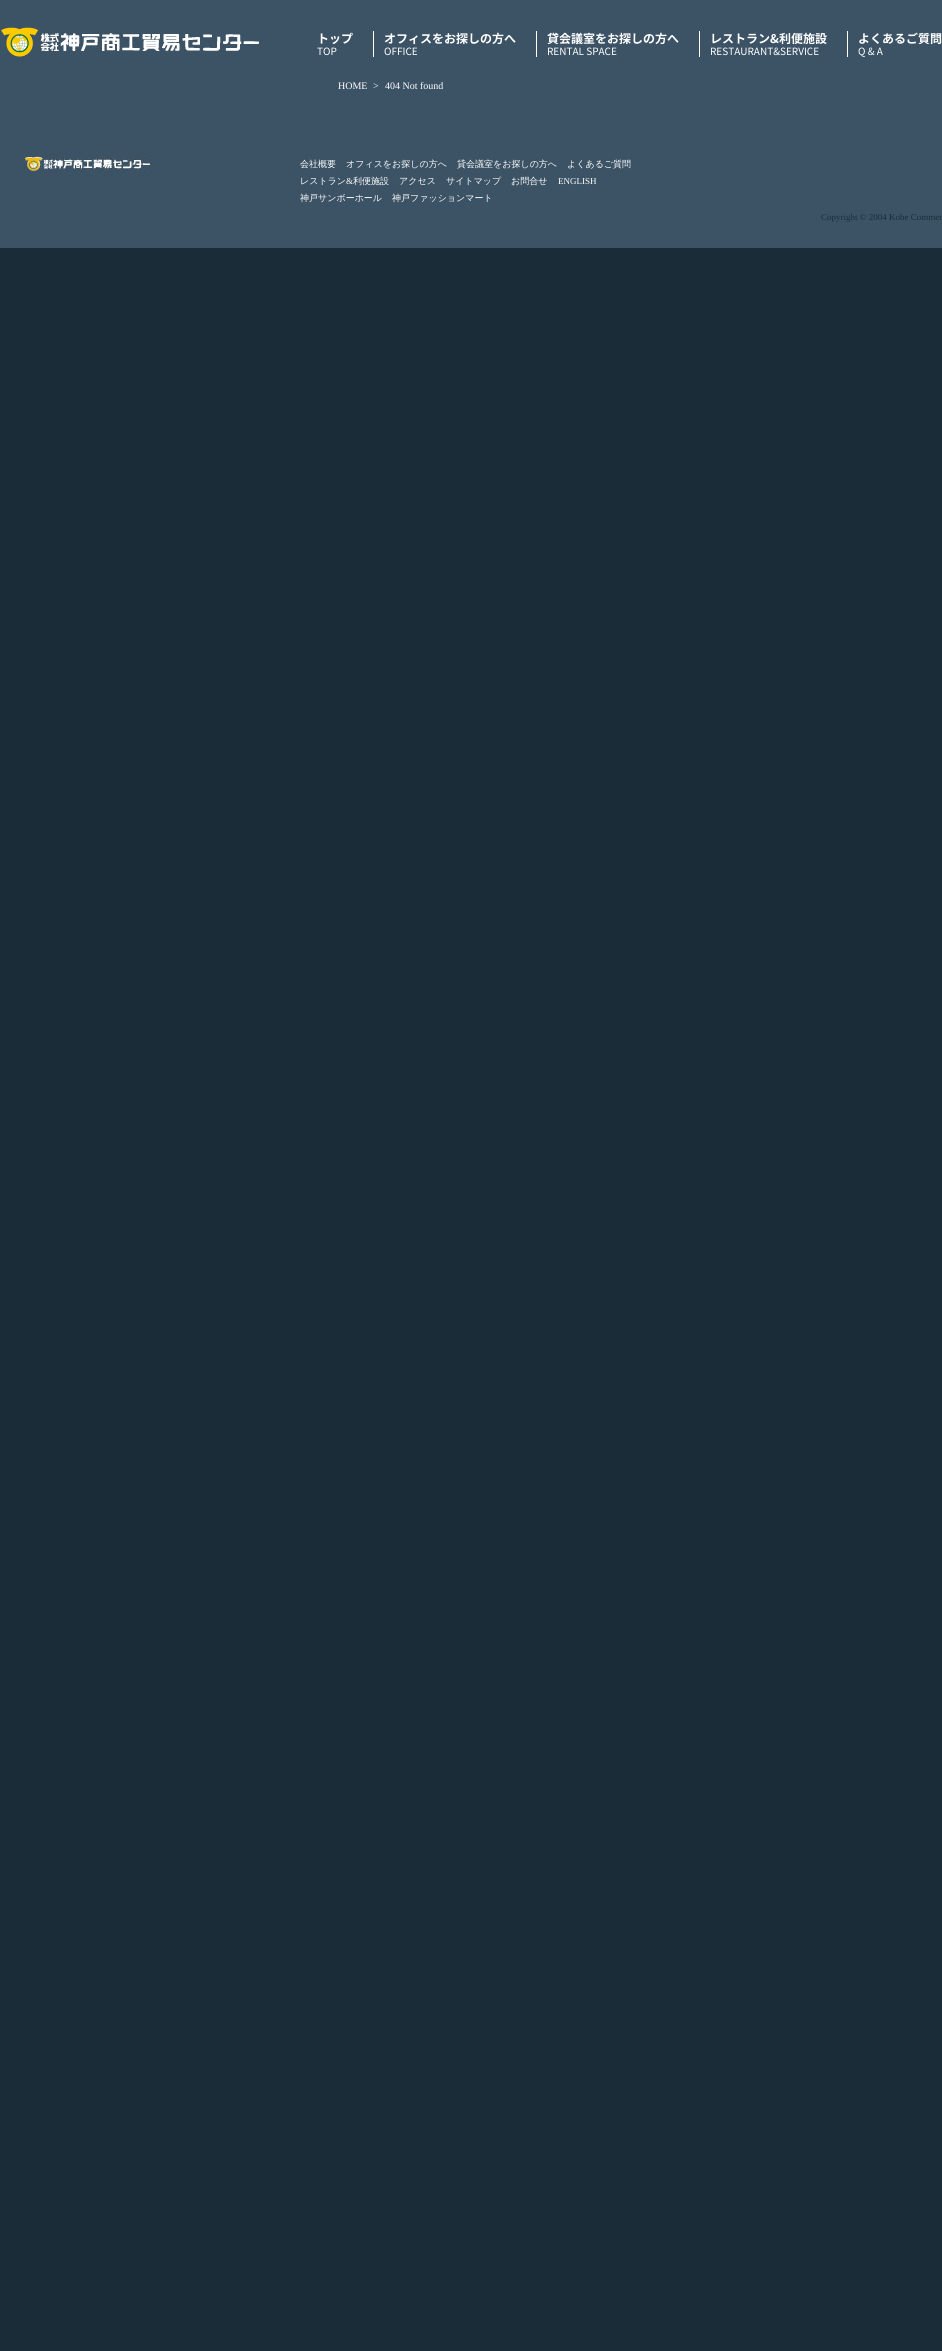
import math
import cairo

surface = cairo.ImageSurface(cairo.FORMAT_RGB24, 942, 2351)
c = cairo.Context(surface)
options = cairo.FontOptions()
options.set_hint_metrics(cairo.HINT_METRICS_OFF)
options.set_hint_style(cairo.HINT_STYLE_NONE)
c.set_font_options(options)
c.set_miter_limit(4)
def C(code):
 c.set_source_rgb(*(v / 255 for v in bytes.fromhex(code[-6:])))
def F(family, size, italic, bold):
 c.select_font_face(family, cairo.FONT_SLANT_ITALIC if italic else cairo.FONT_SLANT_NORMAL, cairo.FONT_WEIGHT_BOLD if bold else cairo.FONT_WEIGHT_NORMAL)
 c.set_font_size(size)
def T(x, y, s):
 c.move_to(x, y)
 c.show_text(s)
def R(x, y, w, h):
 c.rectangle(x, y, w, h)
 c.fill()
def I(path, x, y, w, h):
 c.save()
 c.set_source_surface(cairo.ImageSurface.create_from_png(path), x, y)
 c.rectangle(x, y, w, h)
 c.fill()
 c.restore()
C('192c37')
c.paint()
C('3c5365')
R(0,0,942,248)
I('1.png',1,27,258,30)
F('Noto Sans JP',12,0,1)
C('ffffff')
T(317,43,'トップ')
F('Noto Sans JP',10,0,0)
T(317,55,'TOP')
R(373,31,1,26)
F('Noto Sans JP',12,0,1)
T(384,43,'オフィスをお探しの方へ')
F('Noto Sans JP',10,0,0)
T(384,55,'OFFICE')
R(536,31,1,26)
F('Noto Sans JP',12,0,1)
T(547,43,'貸会議室をお探しの方へ')
F('Noto Sans JP',10,0,0)
T(547,55,'RENTAL SPACE')
R(699,31,1,26)
F('Noto Sans JP',12,0,1)
T(710,43,'レストラン&利便施設')
F('Noto Sans JP',10,0,0)
T(710,55,'RESTAURANT&SERVICE')
R(847,31,1,26)
F('Noto Sans JP',12,0,1)
T(858,43,'よくあるご質問')
F('Noto Sans JP',10,0,0)
T(858,55,'Q & A')
F('Liberation Serif',10,0,0)
T(338,89,'HOME')
T(373,89,'>')
T(385,89,'404 Not found')
I('2.png',20,156,131,16)
F('WenQuanYi Zen Hei Medium',9,0,0)
T(300,167,'会社概要')
T(346,167,'オフィスをお探しの方へ')
T(457,167,'貸会議室をお探しの方へ')
T(567,167,'よくあるご質問')
T(300,184,'レストラン')
F('Liberation Serif',9,0,0)
T(346,184,'&')
F('WenQuanYi Zen Hei Medium',9,0,0)
T(353,184,'利便施設')
T(399,184,'アクセス')
T(446,184,'サイトマップ')
T(511,184,'お問合せ')
F('Liberation Serif',9,0,0)
T(558,184,'ENGLISH')
F('WenQuanYi Zen Hei Medium',9,0,0)
T(300,201,'神戸サンボーホール')
T(392,201,'神戸ファッションマート')
F('Liberation Serif',9,0,0)
C('192c37')
T(821,220,'Copyright © 2004 Kobe Commer')
surface.write_to_png('o.png')
